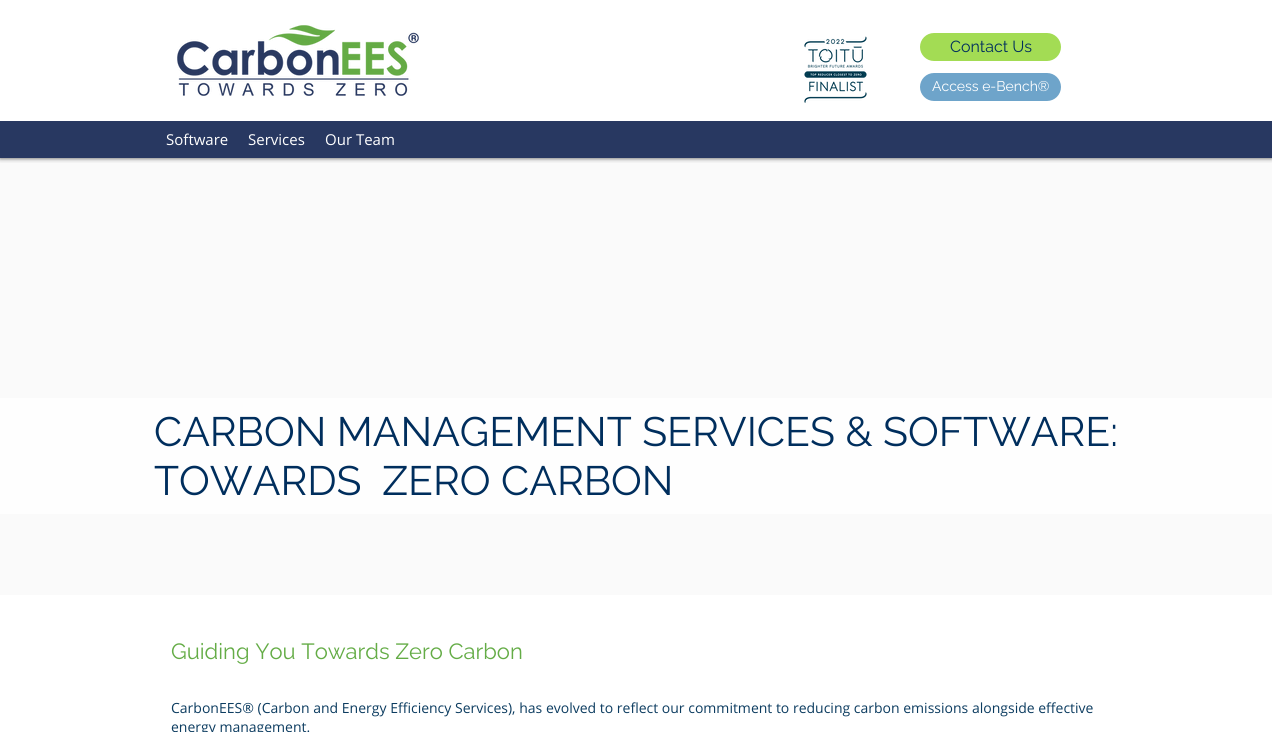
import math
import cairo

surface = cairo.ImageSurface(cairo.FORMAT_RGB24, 1272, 732)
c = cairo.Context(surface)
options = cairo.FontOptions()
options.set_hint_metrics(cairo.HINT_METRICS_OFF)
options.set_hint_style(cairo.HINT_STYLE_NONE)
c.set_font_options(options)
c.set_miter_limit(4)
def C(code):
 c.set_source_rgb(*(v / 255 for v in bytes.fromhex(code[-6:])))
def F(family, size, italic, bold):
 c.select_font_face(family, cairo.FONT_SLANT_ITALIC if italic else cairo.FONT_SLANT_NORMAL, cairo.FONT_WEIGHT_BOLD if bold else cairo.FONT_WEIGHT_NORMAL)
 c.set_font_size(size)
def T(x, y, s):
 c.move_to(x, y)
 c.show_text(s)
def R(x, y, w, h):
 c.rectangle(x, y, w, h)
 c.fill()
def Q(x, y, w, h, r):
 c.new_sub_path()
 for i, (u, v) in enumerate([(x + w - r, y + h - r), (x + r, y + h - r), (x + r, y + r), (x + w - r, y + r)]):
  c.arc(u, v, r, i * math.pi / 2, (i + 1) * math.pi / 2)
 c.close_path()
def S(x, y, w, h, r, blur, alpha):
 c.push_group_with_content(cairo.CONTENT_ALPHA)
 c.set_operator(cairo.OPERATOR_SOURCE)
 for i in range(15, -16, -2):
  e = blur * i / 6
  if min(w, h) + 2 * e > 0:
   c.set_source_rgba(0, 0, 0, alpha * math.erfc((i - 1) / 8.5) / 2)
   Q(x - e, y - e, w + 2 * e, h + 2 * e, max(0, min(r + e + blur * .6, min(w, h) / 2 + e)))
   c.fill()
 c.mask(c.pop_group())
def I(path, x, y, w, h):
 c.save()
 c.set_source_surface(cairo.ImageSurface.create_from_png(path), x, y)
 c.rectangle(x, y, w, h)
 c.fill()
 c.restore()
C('ffffff')
c.paint()
C('fafafa')
R(0,158,1272,437)
c.save()
c.rectangle(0,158,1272,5)
c.clip()
C('000000')
S(0,0,1272,158,0,2.5,.7)
c.restore()
I('1.png',177,25,242,71)
I('2.png',804,36,63,67)
C('a3dc54')
Q(920,33,141,28,14)
c.fill()
F('Raleway',16,0,0)
C('002e5d')
T(950,52,'Contact Us')
C('6ea4ca')
Q(920,73,141,28,14)
c.fill()
F('Raleway',14,0,0)
C('ffffff')
T(932,91,'Access e-Bench®')
C('283861')
R(0,121,1272,37)
F('Open Sans',15,0,0)
C('ffffff')
T(166,145,'Software')
T(248,145,'Services')
T(325,145,'Our Team')
C('fefefe')
R(0,398,1272,116)
F('Raleway',41,0,0)
C('002e5d')
T(154,446,'CARBON MANAGEMENT SERVICES & SOFTWARE:')
T(154,495,'TOWARDS  ZERO CARBON')
F('Raleway',22,0,0)
C('64ac46')
T(171,659,'Guiding You Towards Zero Carbon')
F('Open Sans',14,0,0)
C('0c3c60')
T(171,713,'CarbonEES® (Carbon and Energy Efficiency Services), has evolved to reflect our commitment to reducing carbon emissions alongside effective')
T(171,732,'energy management.')
surface.write_to_png('o.png')
